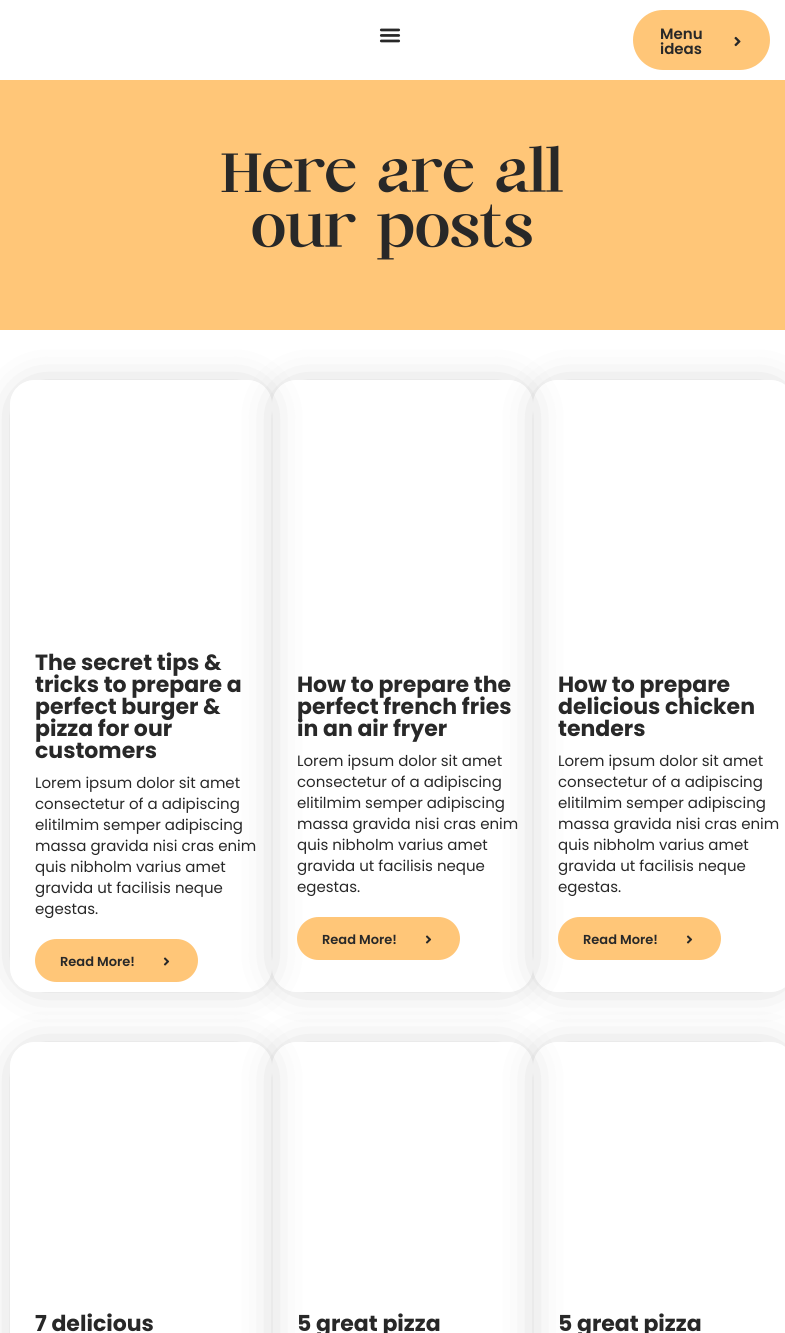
import math
import cairo

surface = cairo.ImageSurface(cairo.FORMAT_RGB24, 785, 1333)
c = cairo.Context(surface)
options = cairo.FontOptions()
options.set_hint_metrics(cairo.HINT_METRICS_OFF)
options.set_hint_style(cairo.HINT_STYLE_NONE)
c.set_font_options(options)
c.set_miter_limit(4)
def C(code):
 c.set_source_rgb(*(v / 255 for v in bytes.fromhex(code[-6:])))
def F(family, size, italic, bold):
 c.select_font_face(family, cairo.FONT_SLANT_ITALIC if italic else cairo.FONT_SLANT_NORMAL, cairo.FONT_WEIGHT_BOLD if bold else cairo.FONT_WEIGHT_NORMAL)
 c.set_font_size(size)
def T(x, y, s):
 c.move_to(x, y)
 c.show_text(s)
def R(x, y, w, h):
 c.rectangle(x, y, w, h)
 c.fill()
def Q(x, y, w, h, r):
 c.new_sub_path()
 for i, (u, v) in enumerate([(x + w - r, y + h - r), (x + r, y + h - r), (x + r, y + r), (x + w - r, y + r)]):
  c.arc(u, v, r, i * math.pi / 2, (i + 1) * math.pi / 2)
 c.close_path()
def S(x, y, w, h, r, blur, alpha):
 c.push_group_with_content(cairo.CONTENT_ALPHA)
 c.set_operator(cairo.OPERATOR_SOURCE)
 for i in range(15, -16, -2):
  e = blur * i / 6
  if min(w, h) + 2 * e > 0:
   c.set_source_rgba(0, 0, 0, alpha * math.erfc((i - 1) / 8.5) / 2)
   Q(x - e, y - e, w + 2 * e, h + 2 * e, max(0, min(r + e + blur * .6, min(w, h) / 2 + e)))
   c.fill()
 c.mask(c.pop_group())
def I(path, x, y, w, h):
 c.save()
 c.set_source_surface(cairo.ImageSurface.create_from_png(path), x, y)
 c.rectangle(x, y, w, h)
 c.fill()
 c.restore()
C('ffffff')
c.paint()
I('1.png',379,28,22,15)
C('ffc678')
Q(633,10,137,60,30)
c.fill()
F('Poppins SemiBold',15,0,0)
C('282828')
T(660,39,'Menu')
T(660,54,'ideas')
I('2.png',734,36,7,11)
C('ffc678')
R(0,80,785,250)
F('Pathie',55,0,0)
C('282828')
T(221,192,'Here are all')
T(251,247,'our posts')
c.save()
c.set_fill_rule(cairo.FILL_RULE_EVEN_ODD)
c.new_path()
c.move_to(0,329)
c.line_to(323,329)
c.line_to(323,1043)
c.line_to(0,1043)
c.close_path()
c.move_to(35,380)
c.line_to(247,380)
c.curve_to(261,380,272,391,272,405)
c.line_to(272,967)
c.curve_to(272,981,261,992,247,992)
c.line_to(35,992)
c.curve_to(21,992,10,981,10,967)
c.line_to(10,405)
c.curve_to(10,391,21,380,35,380)
c.close_path()
c.clip()
C('000000')
S(28,398,226,576,7,22.5,.36)
c.restore()
F('Poppins',22,0,1)
T(35,670,'The secret tips &')
T(35,692,'tricks to prepare a')
T(35,714,'perfect burger &')
T(35,736,'pizza for our')
T(35,758,'customers')
F('Poppins',15,0,0)
T(35,788,'Lorem ipsum dolor sit amet')
T(35,809,'consectetur of a adipiscing')
T(35,830,'elitilmim semper adipiscing')
T(35,851,'massa gravida nisi cras enim')
T(35,872,'quis nibholm varius amet')
T(35,893,'gravida ut facilisis neque')
T(35,914,'egestas.')
C('ffc678')
Q(35,939,163,43,21.5)
c.fill()
F('Poppins SemiBold',13,0,0)
C('282828')
T(60,966,'Read More!')
I('3.png',163,957,7,9)
c.save()
c.set_fill_rule(cairo.FILL_RULE_EVEN_ODD)
c.new_path()
c.move_to(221,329)
c.line_to(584,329)
c.line_to(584,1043)
c.line_to(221,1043)
c.close_path()
c.move_to(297,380)
c.line_to(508,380)
c.curve_to(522,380,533,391,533,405)
c.line_to(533,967)
c.curve_to(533,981,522,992,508,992)
c.line_to(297,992)
c.curve_to(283,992,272,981,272,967)
c.line_to(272,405)
c.curve_to(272,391,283,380,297,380)
c.close_path()
c.clip()
C('000000')
S(290,398,225,576,7,22.5,.36)
c.restore()
F('Poppins',22,0,1)
T(297,692,'How to prepare the')
T(297,714,'perfect french fries')
T(297,736,'in an air fryer')
F('Poppins',15,0,0)
T(297,766,'Lorem ipsum dolor sit amet')
T(297,787,'consectetur of a adipiscing')
T(297,808,'elitilmim semper adipiscing')
T(297,829,'massa gravida nisi cras enim')
T(297,850,'quis nibholm varius amet')
T(297,871,'gravida ut facilisis neque')
T(297,892,'egestas.')
C('ffc678')
Q(297,917,163,43,21.5)
c.fill()
F('Poppins SemiBold',13,0,0)
C('282828')
T(322,944,'Read More!')
I('3.png',425,935,7,9)
c.save()
c.set_fill_rule(cairo.FILL_RULE_EVEN_ODD)
c.new_path()
c.move_to(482,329)
c.line_to(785,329)
c.line_to(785,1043)
c.line_to(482,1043)
c.close_path()
c.move_to(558,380)
c.line_to(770,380)
c.curve_to(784,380,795,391,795,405)
c.line_to(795,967)
c.curve_to(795,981,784,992,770,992)
c.line_to(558,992)
c.curve_to(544,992,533,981,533,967)
c.line_to(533,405)
c.curve_to(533,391,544,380,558,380)
c.close_path()
c.clip()
C('000000')
S(551,398,226,576,7,22.5,.36)
c.restore()
F('Poppins',22,0,1)
T(558,692,'How to prepare')
T(558,714,'delicious chicken')
T(558,736,'tenders')
F('Poppins',15,0,0)
T(558,766,'Lorem ipsum dolor sit amet')
T(558,787,'consectetur of a adipiscing')
T(558,808,'elitilmim semper adipiscing')
T(558,829,'massa gravida nisi cras enim')
T(558,850,'quis nibholm varius amet')
T(558,871,'gravida ut facilisis neque')
T(558,892,'egestas.')
C('ffc678')
Q(558,917,163,43,21.5)
c.fill()
F('Poppins SemiBold',13,0,0)
C('282828')
T(583,944,'Read More!')
I('3.png',686,935,7,9)
c.save()
c.set_fill_rule(cairo.FILL_RULE_EVEN_ODD)
c.new_path()
c.move_to(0,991)
c.line_to(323,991)
c.line_to(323,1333)
c.line_to(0,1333)
c.close_path()
c.move_to(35,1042)
c.line_to(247,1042)
c.curve_to(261,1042,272,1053,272,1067)
c.line_to(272,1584)
c.curve_to(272,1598,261,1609,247,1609)
c.line_to(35,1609)
c.curve_to(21,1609,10,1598,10,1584)
c.line_to(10,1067)
c.curve_to(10,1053,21,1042,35,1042)
c.close_path()
c.clip()
C('000000')
S(28,1060,226,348,7,22.5,.36)
c.restore()
F('Poppins',22,0,1)
T(35,1331,'7 delicious')
c.save()
c.set_fill_rule(cairo.FILL_RULE_EVEN_ODD)
c.new_path()
c.move_to(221,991)
c.line_to(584,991)
c.line_to(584,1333)
c.line_to(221,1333)
c.close_path()
c.move_to(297,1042)
c.line_to(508,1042)
c.curve_to(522,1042,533,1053,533,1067)
c.line_to(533,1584)
c.curve_to(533,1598,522,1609,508,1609)
c.line_to(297,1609)
c.curve_to(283,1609,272,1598,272,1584)
c.line_to(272,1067)
c.curve_to(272,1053,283,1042,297,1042)
c.close_path()
c.clip()
C('000000')
S(290,1060,225,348,7,22.5,.36)
c.restore()
T(297,1331,'5 great pizza')
c.save()
c.set_fill_rule(cairo.FILL_RULE_EVEN_ODD)
c.new_path()
c.move_to(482,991)
c.line_to(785,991)
c.line_to(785,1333)
c.line_to(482,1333)
c.close_path()
c.move_to(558,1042)
c.line_to(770,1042)
c.curve_to(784,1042,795,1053,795,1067)
c.line_to(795,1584)
c.curve_to(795,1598,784,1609,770,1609)
c.line_to(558,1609)
c.curve_to(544,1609,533,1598,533,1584)
c.line_to(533,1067)
c.curve_to(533,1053,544,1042,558,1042)
c.close_path()
c.clip()
C('000000')
S(551,1060,226,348,7,22.5,.36)
c.restore()
T(558,1331,'5 great pizza')
surface.write_to_png('o.png')
